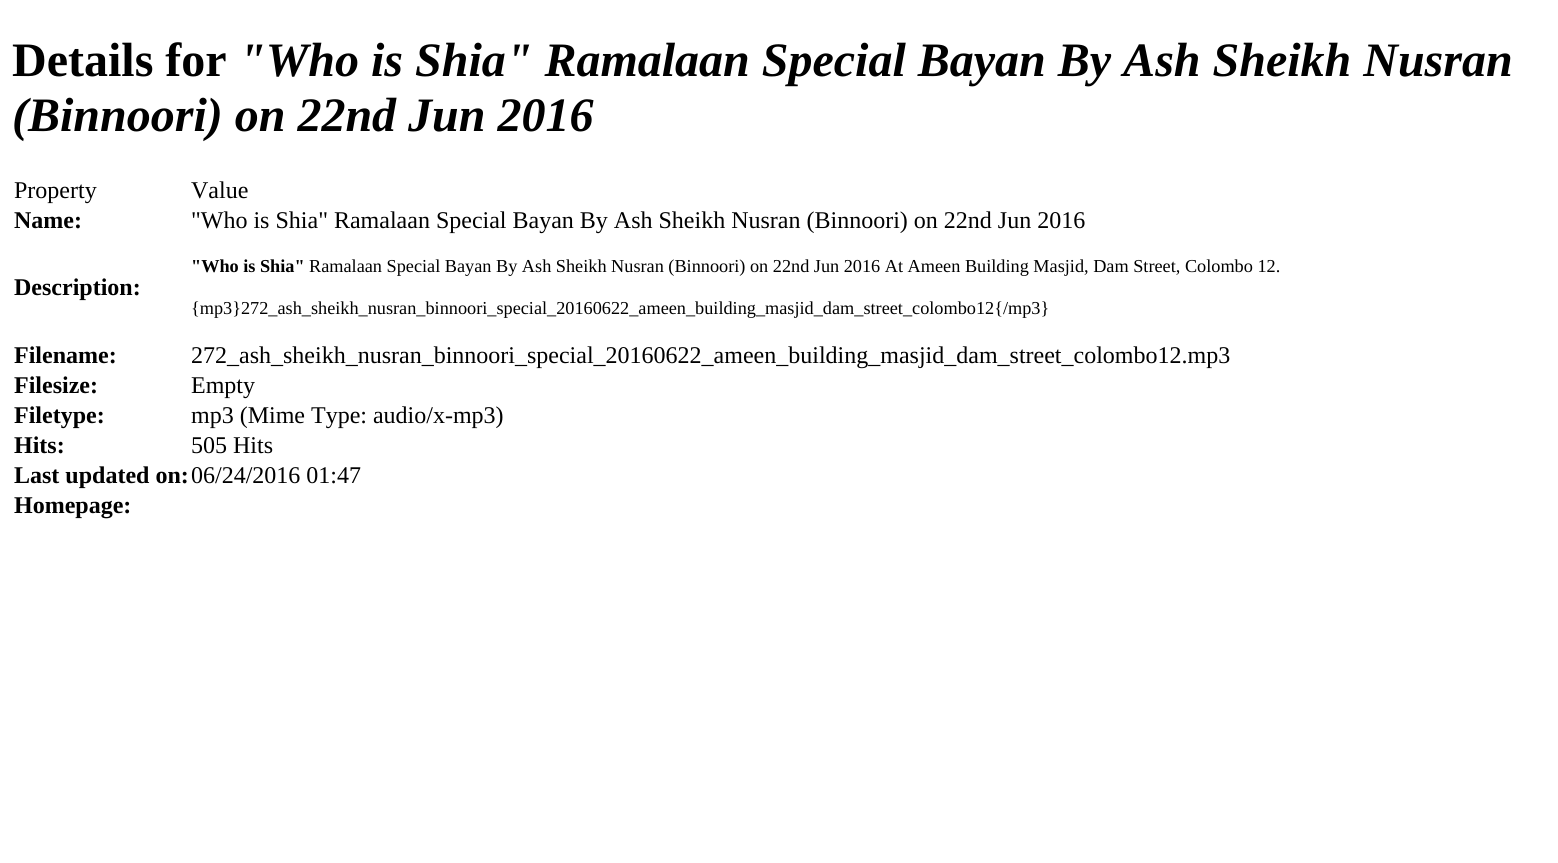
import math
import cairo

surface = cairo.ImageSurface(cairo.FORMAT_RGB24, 1558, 863)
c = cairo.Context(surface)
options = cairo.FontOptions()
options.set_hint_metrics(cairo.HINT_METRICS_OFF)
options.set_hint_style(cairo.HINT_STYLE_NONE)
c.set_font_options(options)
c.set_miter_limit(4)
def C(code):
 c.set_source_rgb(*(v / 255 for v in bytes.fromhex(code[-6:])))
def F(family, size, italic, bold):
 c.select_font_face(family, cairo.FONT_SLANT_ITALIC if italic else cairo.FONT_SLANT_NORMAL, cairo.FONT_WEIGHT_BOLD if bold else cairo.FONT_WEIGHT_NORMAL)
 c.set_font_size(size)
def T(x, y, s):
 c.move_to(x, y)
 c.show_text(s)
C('ffffff')
c.paint()
F('Liberation Serif',48,0,1)
C('000000')
T(12,76,'Details for')
F('Liberation Serif',48,1,1)
T(239,76,'"Who is Shia" Ramalaan Special Bayan By Ash Sheikh Nusran')
T(12,131,'(Binnoori) on 22nd Jun 2016')
F('Liberation Serif',24,0,0)
T(14,198,'Property')
T(191,198,'Value')
F('Liberation Serif',24,0,1)
T(14,228,'Name:')
F('Liberation Serif',24,0,0)
T(191,228,'"Who is Shia" Ramalaan Special Bayan By Ash Sheikh Nusran (Binnoori) on 22nd Jun 2016')
F('Liberation Serif',24,0,1)
T(14,295,'Description:')
F('Liberation Serif',18.25,0,1)
T(191,272,'"Who is Shia"')
F('Liberation Serif',18.25,0,0)
T(309,272,'Ramalaan Special Bayan By Ash Sheikh Nusran (Binnoori) on 22nd Jun 2016 At Ameen Building Masjid, Dam Street, Colombo 12.')
T(191,314,'{mp3}272_ash_sheikh_nusran_binnoori_special_20160622_ameen_building_masjid_dam_street_colombo12{/mp3}')
F('Liberation Serif',24,0,1)
T(14,363,'Filename:')
F('Liberation Serif',24,0,0)
T(191,363,'272_ash_sheikh_nusran_binnoori_special_20160622_ameen_building_masjid_dam_street_colombo12.mp3')
F('Liberation Serif',24,0,1)
T(14,393,'Filesize:')
F('Liberation Serif',24,0,0)
T(191,393,'Empty')
F('Liberation Serif',24,0,1)
T(14,423,'Filetype:')
F('Liberation Serif',24,0,0)
T(191,423,'mp3 (Mime Type: audio/x-mp3)')
F('Liberation Serif',24,0,1)
T(14,453,'Hits:')
F('Liberation Serif',24,0,0)
T(191,453,'505 Hits')
F('Liberation Serif',24,0,1)
T(14,483,'Last updated on:')
F('Liberation Serif',24,0,0)
T(191,483,'06/24/2016 01:47')
F('Liberation Serif',24,0,1)
T(14,513,'Homepage:')
surface.write_to_png('o.png')
